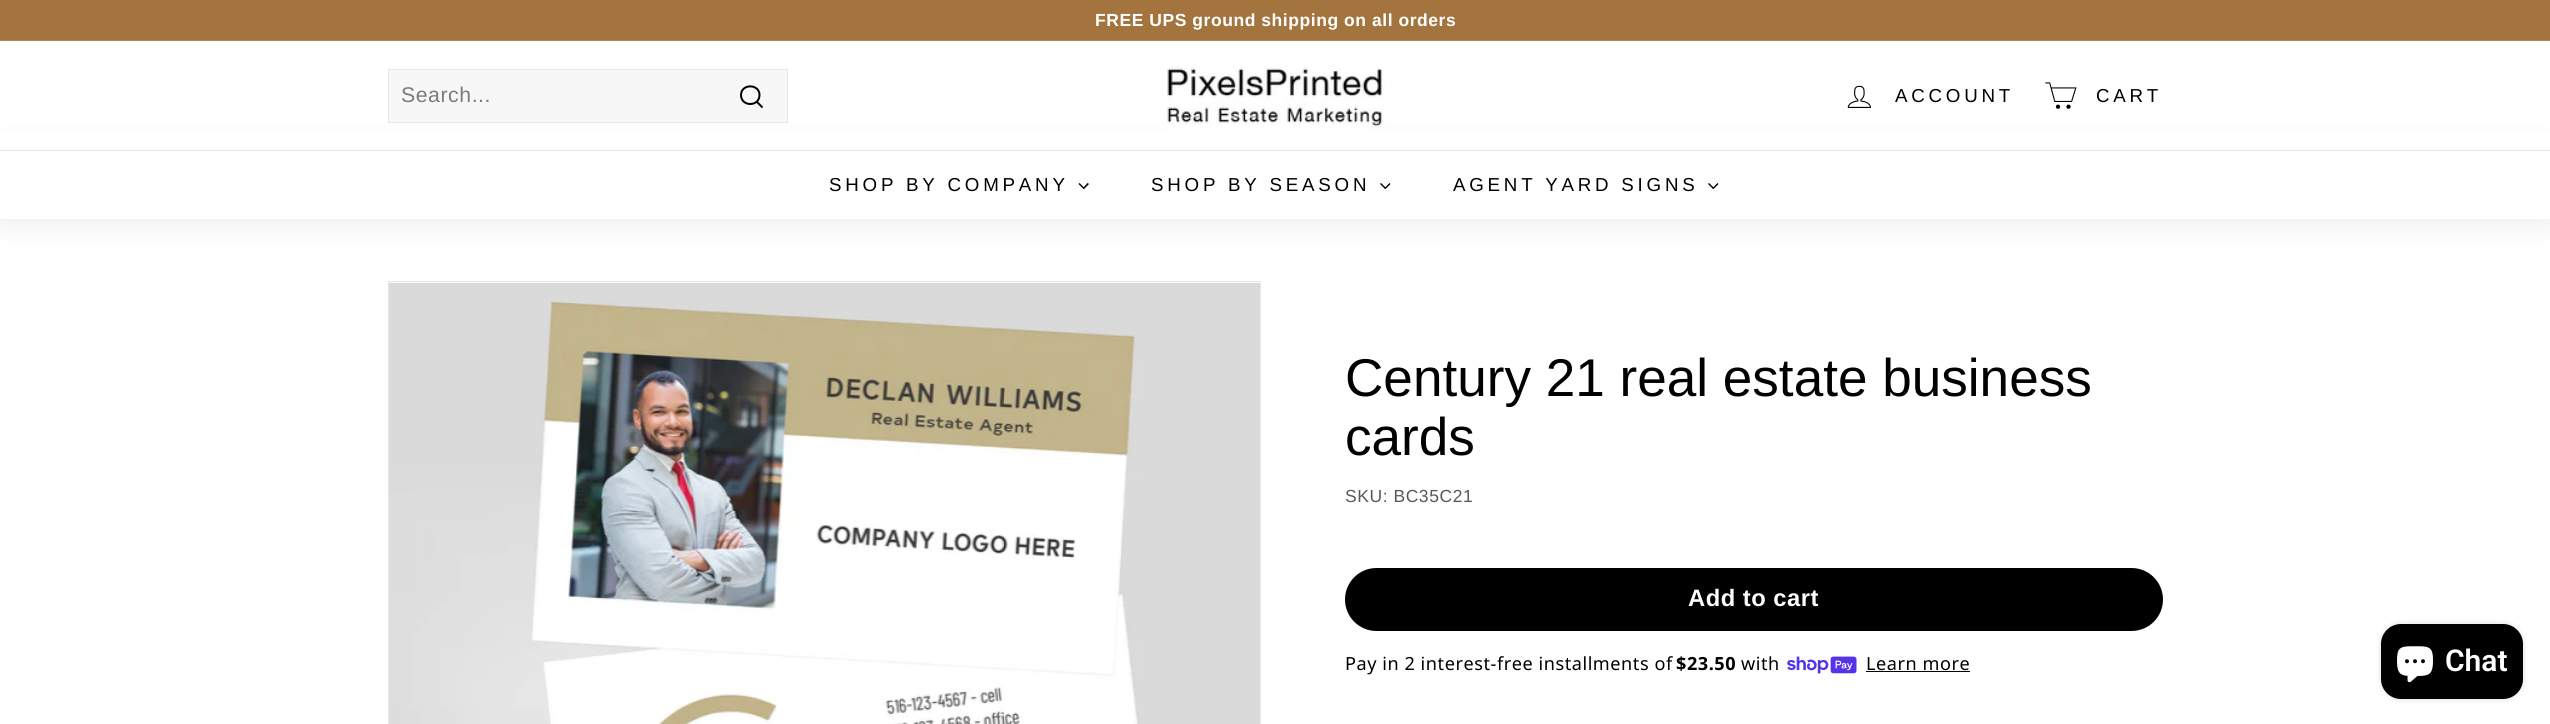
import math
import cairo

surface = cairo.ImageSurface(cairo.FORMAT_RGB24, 2550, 724)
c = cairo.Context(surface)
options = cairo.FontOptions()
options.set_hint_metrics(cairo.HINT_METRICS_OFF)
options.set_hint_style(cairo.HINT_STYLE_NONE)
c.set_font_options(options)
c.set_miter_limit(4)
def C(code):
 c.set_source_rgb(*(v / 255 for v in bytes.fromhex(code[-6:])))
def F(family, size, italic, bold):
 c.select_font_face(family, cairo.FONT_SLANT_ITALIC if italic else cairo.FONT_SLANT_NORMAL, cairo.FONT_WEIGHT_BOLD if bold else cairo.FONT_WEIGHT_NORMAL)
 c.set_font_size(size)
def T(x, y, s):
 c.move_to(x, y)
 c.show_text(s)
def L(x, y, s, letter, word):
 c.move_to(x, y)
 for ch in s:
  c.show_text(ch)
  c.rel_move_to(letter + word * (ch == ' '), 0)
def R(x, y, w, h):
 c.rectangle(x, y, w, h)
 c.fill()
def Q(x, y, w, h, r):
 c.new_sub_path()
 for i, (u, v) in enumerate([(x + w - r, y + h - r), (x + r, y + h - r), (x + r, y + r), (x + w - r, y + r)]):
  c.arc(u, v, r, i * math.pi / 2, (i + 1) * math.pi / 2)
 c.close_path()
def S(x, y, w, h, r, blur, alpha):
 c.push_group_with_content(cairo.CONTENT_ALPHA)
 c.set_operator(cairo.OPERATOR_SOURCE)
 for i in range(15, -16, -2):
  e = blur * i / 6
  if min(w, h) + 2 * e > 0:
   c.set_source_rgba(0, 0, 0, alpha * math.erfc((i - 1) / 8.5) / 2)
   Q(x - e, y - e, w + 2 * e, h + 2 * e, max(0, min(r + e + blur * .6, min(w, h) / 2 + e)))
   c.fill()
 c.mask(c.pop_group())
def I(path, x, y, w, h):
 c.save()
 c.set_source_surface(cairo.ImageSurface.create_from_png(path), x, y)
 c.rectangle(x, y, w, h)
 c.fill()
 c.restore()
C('ffffff')
c.paint()
C('a4743f')
R(0,0,2550,40)
F('Liberation Sans',17.5,0,1)
C('ffffff')
L(1095,26,'FREE UPS ground shipping on all orders',.55,0)
C('b2895c')
R(0,40,2550,1)
C('000000')
S(0,150,2550,69,0,15.5,.1)
C('ffffff')
R(0,130,2550,20)
C('f7f7f7')
c.rectangle(388.5,69.5,399,53)
c.fill_preserve()
C('e8e8e1')
c.set_line_width(1)
c.stroke()
F('Liberation Sans',21.25,0,0)
C('7c7c7c')
L(401,102,'Search...',.55,0)
c.new_path()
c.move_to(759.5,95)
c.curve_to(759.5,107,741,107,741,95)
c.curve_to(741,83.5,759.5,83.5,759.5,95)
c.close_path()
c.move_to(762.5,107.5)
c.line_to(756.5,101.5)
C('000000')
c.set_line_width(2)
c.stroke()
I('1.png',1167,66,218,63)
I('2.png',1847,85,24,23)
F('Liberation Sans',18.75,0,0)
L(1895,102,'ACCOUNT',3.75,0)
I('3.png',2045,82,32,27)
L(2096,102,'CART',3.75,0)
C('ffffff')
R(0,151,2550,68)
C('e6e6e6')
R(0,150,2550,1)
C('000000')
L(829,191,'SHOP BY COMPANY',3.75,0)
c.new_path()
c.move_to(1087.5,183)
c.line_to(1089,184)
c.line_to(1084,189)
c.line_to(1083,188)
c.close_path()
c.fill()
c.new_path()
c.move_to(1079.5,183)
c.line_to(1084.5,188)
c.line_to(1083.5,189)
c.line_to(1078.5,184)
c.close_path()
c.fill()
L(1151,191,'SHOP BY SEASON',3.75,0)
c.new_path()
c.move_to(1389.5,183)
c.line_to(1390.5,184)
c.line_to(1385.5,189)
c.line_to(1384.5,188)
c.close_path()
c.fill()
c.new_path()
c.move_to(1381,183)
c.line_to(1386,188)
c.line_to(1385,189)
c.line_to(1380,184)
c.close_path()
c.fill()
L(1453,191,'AGENT YARD SIGNS',3.75,0)
c.new_path()
c.move_to(1717.5,183)
c.line_to(1718.5,184)
c.line_to(1713.5,189)
c.line_to(1712.5,188)
c.close_path()
c.fill()
c.new_path()
c.move_to(1709,183)
c.line_to(1714,188)
c.line_to(1713,189)
c.line_to(1708,184)
c.close_path()
c.fill()
c.rectangle(388.5,281.5,872,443)
C('e8e8e1')
c.set_line_width(1)
c.stroke()
I('4.png',389,283,871,441)
F('Liberation Sans',53.1,0,0)
C('000000')
T(1345,396,'Century 21 real estate business')
T(1345,455,'cards')
F('Liberation Sans',17.5,0,0)
C('595959')
L(1345,502,'SKU: BC35C21',.55,0)
C('000000')
Q(1345,568,818,63,31.5)
c.fill()
F('Liberation Sans',23.75,0,1)
C('ffffff')
L(1688,606,'Add to cart',.5,0)
F('Noto Sans',18.1,0,0)
C('000000')
L(1345,670,'Pay in 2 interest-free installments of',.55,0)
F('Noto Sans',18.1,0,1)
L(1676,670,'$23.50',.55,0)
F('Noto Sans',18.1,0,0)
L(1741,670,'with',.55,0)
I('5.png',1787,656,70,18)
L(1866,670,'Learn more',.55,0)
R(1866,671,104,1)
C('000000')
S(2381,624,142,75,20,3,.15)
C('000000')
Q(2381,624,142,75,20)
c.fill()
I('6.png',2397,646,36,37)
F('Roboto SemiBold',30,0,0)
C('ffffff')
T(2445,671,'Chat')
surface.write_to_png('o.png')
